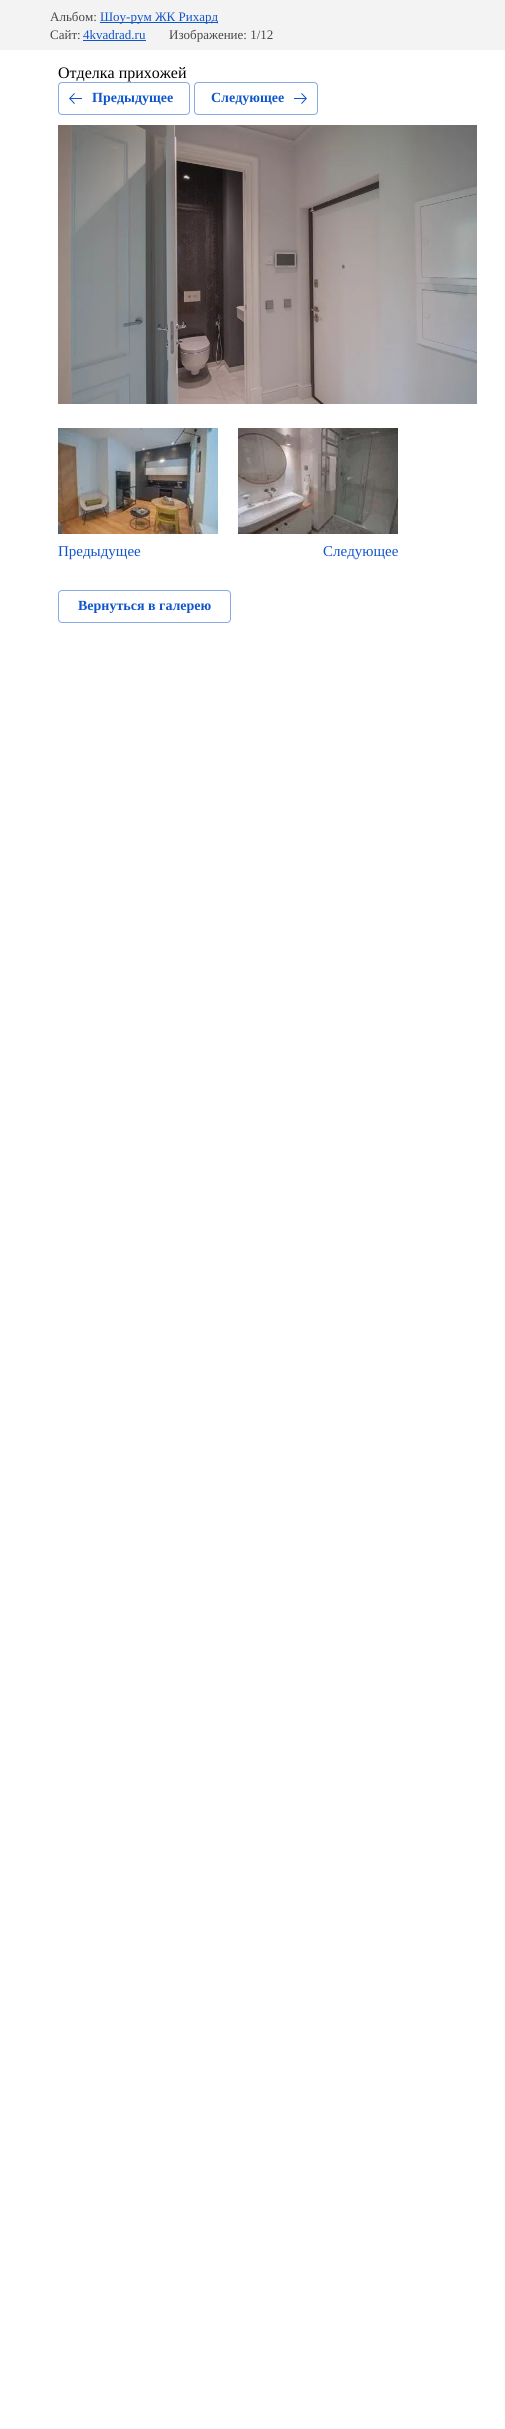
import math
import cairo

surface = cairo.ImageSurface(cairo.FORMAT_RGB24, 505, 2429)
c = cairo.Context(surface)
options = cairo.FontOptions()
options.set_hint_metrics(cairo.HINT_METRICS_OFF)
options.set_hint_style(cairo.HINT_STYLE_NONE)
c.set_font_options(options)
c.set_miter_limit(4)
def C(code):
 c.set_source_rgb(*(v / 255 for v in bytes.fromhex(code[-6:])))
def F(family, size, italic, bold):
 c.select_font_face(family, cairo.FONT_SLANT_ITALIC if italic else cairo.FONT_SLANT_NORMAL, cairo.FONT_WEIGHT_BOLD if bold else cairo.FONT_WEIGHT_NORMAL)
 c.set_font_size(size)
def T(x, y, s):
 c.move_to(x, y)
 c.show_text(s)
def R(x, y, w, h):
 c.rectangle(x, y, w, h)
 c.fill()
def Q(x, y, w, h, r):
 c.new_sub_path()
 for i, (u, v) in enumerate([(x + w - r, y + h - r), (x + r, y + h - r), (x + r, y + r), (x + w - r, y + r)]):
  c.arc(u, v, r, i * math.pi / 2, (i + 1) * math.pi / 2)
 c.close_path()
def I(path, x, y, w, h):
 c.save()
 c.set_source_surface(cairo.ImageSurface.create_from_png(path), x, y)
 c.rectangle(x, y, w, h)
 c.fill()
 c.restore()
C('ffffff')
c.paint()
C('f3f3f3')
R(0,0,505,50)
F('Liberation Serif',13,0,0)
C('484848')
T(50,21,'Альбом:')
C('1155cc')
R(100,22,118,1)
T(100,21,'Шоу-рум ЖК Рихард')
C('484848')
T(50,39,'Сайт:')
C('1155cc')
T(83,39,'4kvadrad.ru')
R(83,40,63,1)
C('484848')
T(169,39,'Изображение: 1/12')
F('Liberation Serif',16,0,0)
C('000000')
T(58,78,'Отделка прихожей')
Q(58.5,82.5,131,32,3.5)
C('88aae6')
c.set_line_width(1)
c.stroke()
I('1.png',69,93,13,11)
F('Liberation Serif',14,0,1)
C('1155cc')
T(92,102,'Предыдущее')
Q(194.5,82.5,123,32,3.5)
C('88aae6')
c.stroke()
C('1155cc')
T(211,102,'Следующее')
I('2.png',294,93,13,11)
I('3.png',58,125,419,279)
I('4.png',58,428,160,106)
F('Liberation Serif',15,0,0)
T(58,556,'Предыдущее')
I('5.png',238,428,160,106)
T(323,556,'Следующее')
Q(58.5,590.5,172,32,3.5)
C('88aae6')
c.stroke()
F('Liberation Serif',14,0,1)
C('1155cc')
T(78,610,'Вернуться в галерею')
surface.write_to_png('o.png')
